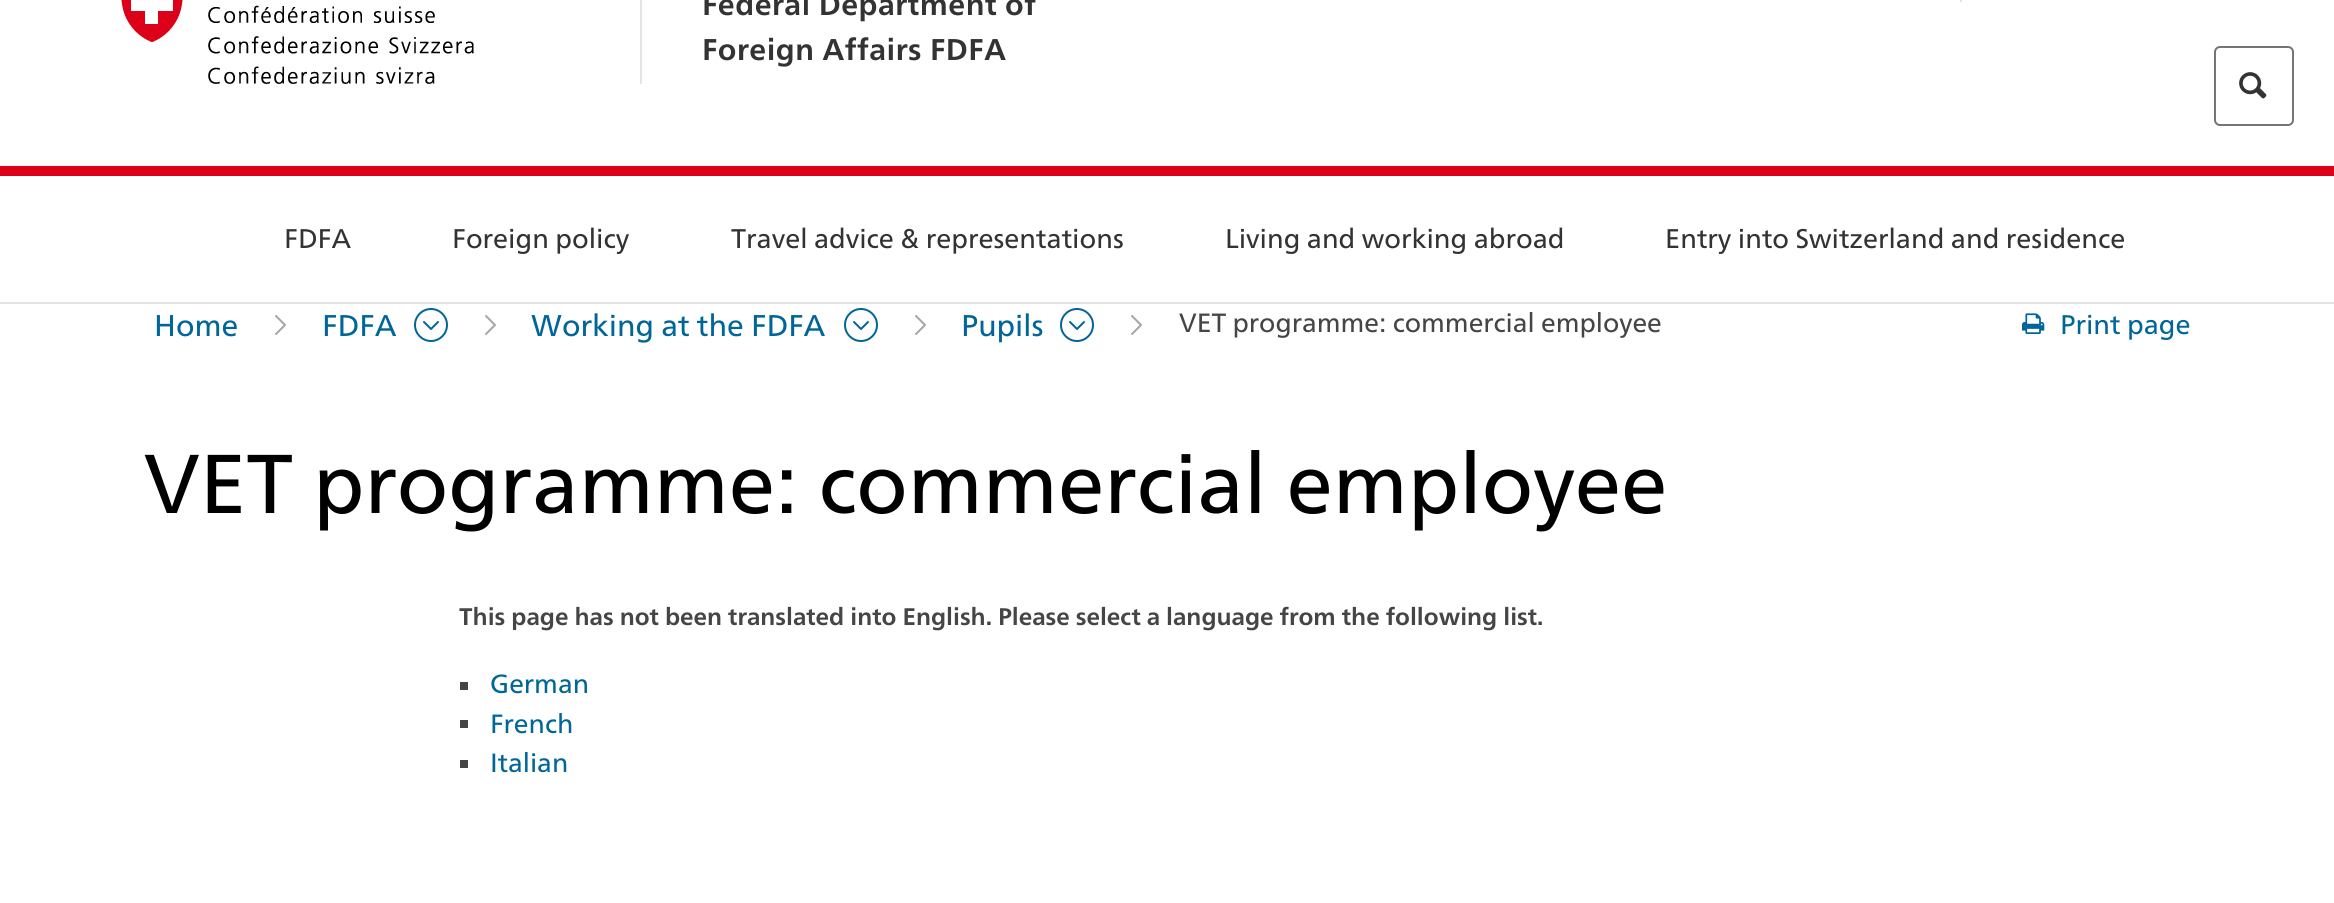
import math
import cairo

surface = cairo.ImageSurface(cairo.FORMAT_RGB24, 2334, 903)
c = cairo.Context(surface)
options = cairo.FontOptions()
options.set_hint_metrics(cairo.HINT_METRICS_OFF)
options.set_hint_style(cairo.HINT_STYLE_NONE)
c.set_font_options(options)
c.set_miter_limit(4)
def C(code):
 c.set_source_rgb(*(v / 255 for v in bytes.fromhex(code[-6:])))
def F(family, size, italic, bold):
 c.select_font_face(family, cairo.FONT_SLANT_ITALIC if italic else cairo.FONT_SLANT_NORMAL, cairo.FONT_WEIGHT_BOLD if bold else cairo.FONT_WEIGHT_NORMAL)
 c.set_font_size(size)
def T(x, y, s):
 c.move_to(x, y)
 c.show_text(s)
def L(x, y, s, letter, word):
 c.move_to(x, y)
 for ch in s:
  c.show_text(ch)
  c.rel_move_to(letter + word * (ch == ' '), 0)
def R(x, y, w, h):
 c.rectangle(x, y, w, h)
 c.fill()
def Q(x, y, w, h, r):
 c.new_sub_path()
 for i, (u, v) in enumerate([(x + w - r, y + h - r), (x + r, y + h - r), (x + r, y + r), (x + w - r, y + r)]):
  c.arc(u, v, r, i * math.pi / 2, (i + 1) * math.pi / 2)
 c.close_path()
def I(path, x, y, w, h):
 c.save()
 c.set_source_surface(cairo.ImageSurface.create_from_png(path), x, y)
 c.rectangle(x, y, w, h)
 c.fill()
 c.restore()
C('ffffff')
c.paint()
C('e4e4e4')
R(0,302,2334,2)
C('dc0018')
R(0,166,2334,10)
C('e4e4e4')
R(640,0,2,84)
I('1.png',121,0,353,84)
F('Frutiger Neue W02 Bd',30,0,1)
C('333333')
L(702,15,'Federal Department of',.5,0)
L(702,60,'Foreign Affairs FDFA',.5,0)
C('e4e4e4')
R(1960,0,2,2)
Q(2215,47,78,78,5)
C('757575')
c.stroke()
I('2.png',2239,72,28,27)
F('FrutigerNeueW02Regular',27,0,0)
C('333333')
T(284,248,'FDFA')
T(452,248,'Foreign policy')
T(731,248,'Travel advice & representations')
T(1225,248,'Living and working abroad')
T(1665,248,'Entry into Switzerland and residence')
F('FrutigerNeueW02Regular',30,0,0)
C('006699')
T(154,336,'Home')
c.new_path()
c.move_to(276,334)
c.line_to(285,325)
c.line_to(276,316)
C('a5a5a5')
c.set_line_cap(cairo.LINE_CAP_ROUND)
c.set_line_join(cairo.LINE_JOIN_ROUND)
c.stroke()
C('006699')
T(322,336,'FDFA')
c.new_path()
c.arc(431,325,16,0,2 * math.pi)
c.set_line_cap(cairo.LINE_CAP_BUTT)
c.set_line_join(cairo.LINE_JOIN_MITER)
c.stroke()
c.new_path()
c.move_to(424,322)
c.line_to(431,329)
c.line_to(438,322)
c.set_line_cap(cairo.LINE_CAP_ROUND)
c.set_line_join(cairo.LINE_JOIN_ROUND)
c.stroke()
c.new_path()
c.move_to(486,334)
c.line_to(495,325)
c.line_to(486,316)
C('a5a5a5')
c.stroke()
C('006699')
T(531,336,'Working at the FDFA')
c.new_path()
c.arc(861,325,16,0,2 * math.pi)
c.set_line_cap(cairo.LINE_CAP_BUTT)
c.set_line_join(cairo.LINE_JOIN_MITER)
c.stroke()
c.new_path()
c.move_to(854,322)
c.line_to(861,329)
c.line_to(868,322)
c.set_line_cap(cairo.LINE_CAP_ROUND)
c.set_line_join(cairo.LINE_JOIN_ROUND)
c.stroke()
c.new_path()
c.move_to(916,334)
c.line_to(925,325)
c.line_to(916,316)
C('a5a5a5')
c.stroke()
C('006699')
T(961,336,'Pupils')
c.new_path()
c.arc(1077,325,16,0,2 * math.pi)
c.set_line_cap(cairo.LINE_CAP_BUTT)
c.set_line_join(cairo.LINE_JOIN_MITER)
c.stroke()
c.new_path()
c.move_to(1070,322)
c.line_to(1077,329)
c.line_to(1084,322)
c.set_line_cap(cairo.LINE_CAP_ROUND)
c.set_line_join(cairo.LINE_JOIN_ROUND)
c.stroke()
c.new_path()
c.move_to(1132,334)
c.line_to(1141,325)
c.line_to(1132,316)
C('a5a5a5')
c.stroke()
F('FrutigerNeueW02Regular',26.4,0,0)
C('454545')
T(1179,332,'VET programme: commercial employee')
I('3.png',2022,313,23,21)
F('FrutigerNeueW02Regular',27,0,0)
C('006699')
T(2060,334,'Print page')
F('FrutigerNeueW02Regular',83.3,0,0)
C('000000')
T(144,513,'VET programme: commercial employee')
F('Frutiger Neue W02 Bd',24,0,1)
C('454545')
T(459,625,'This page has not been translated into English. Please select a language from the following list.')
R(460,682,8,8)
F('FrutigerNeueW02Regular',26.4,0,0)
C('006699')
T(490,693,'German')
C('454545')
R(460,720,8,8)
C('006699')
T(490,733,'French')
C('454545')
R(460,760,8,8)
C('006699')
T(490,772,'Italian')
surface.write_to_png('o.png')
